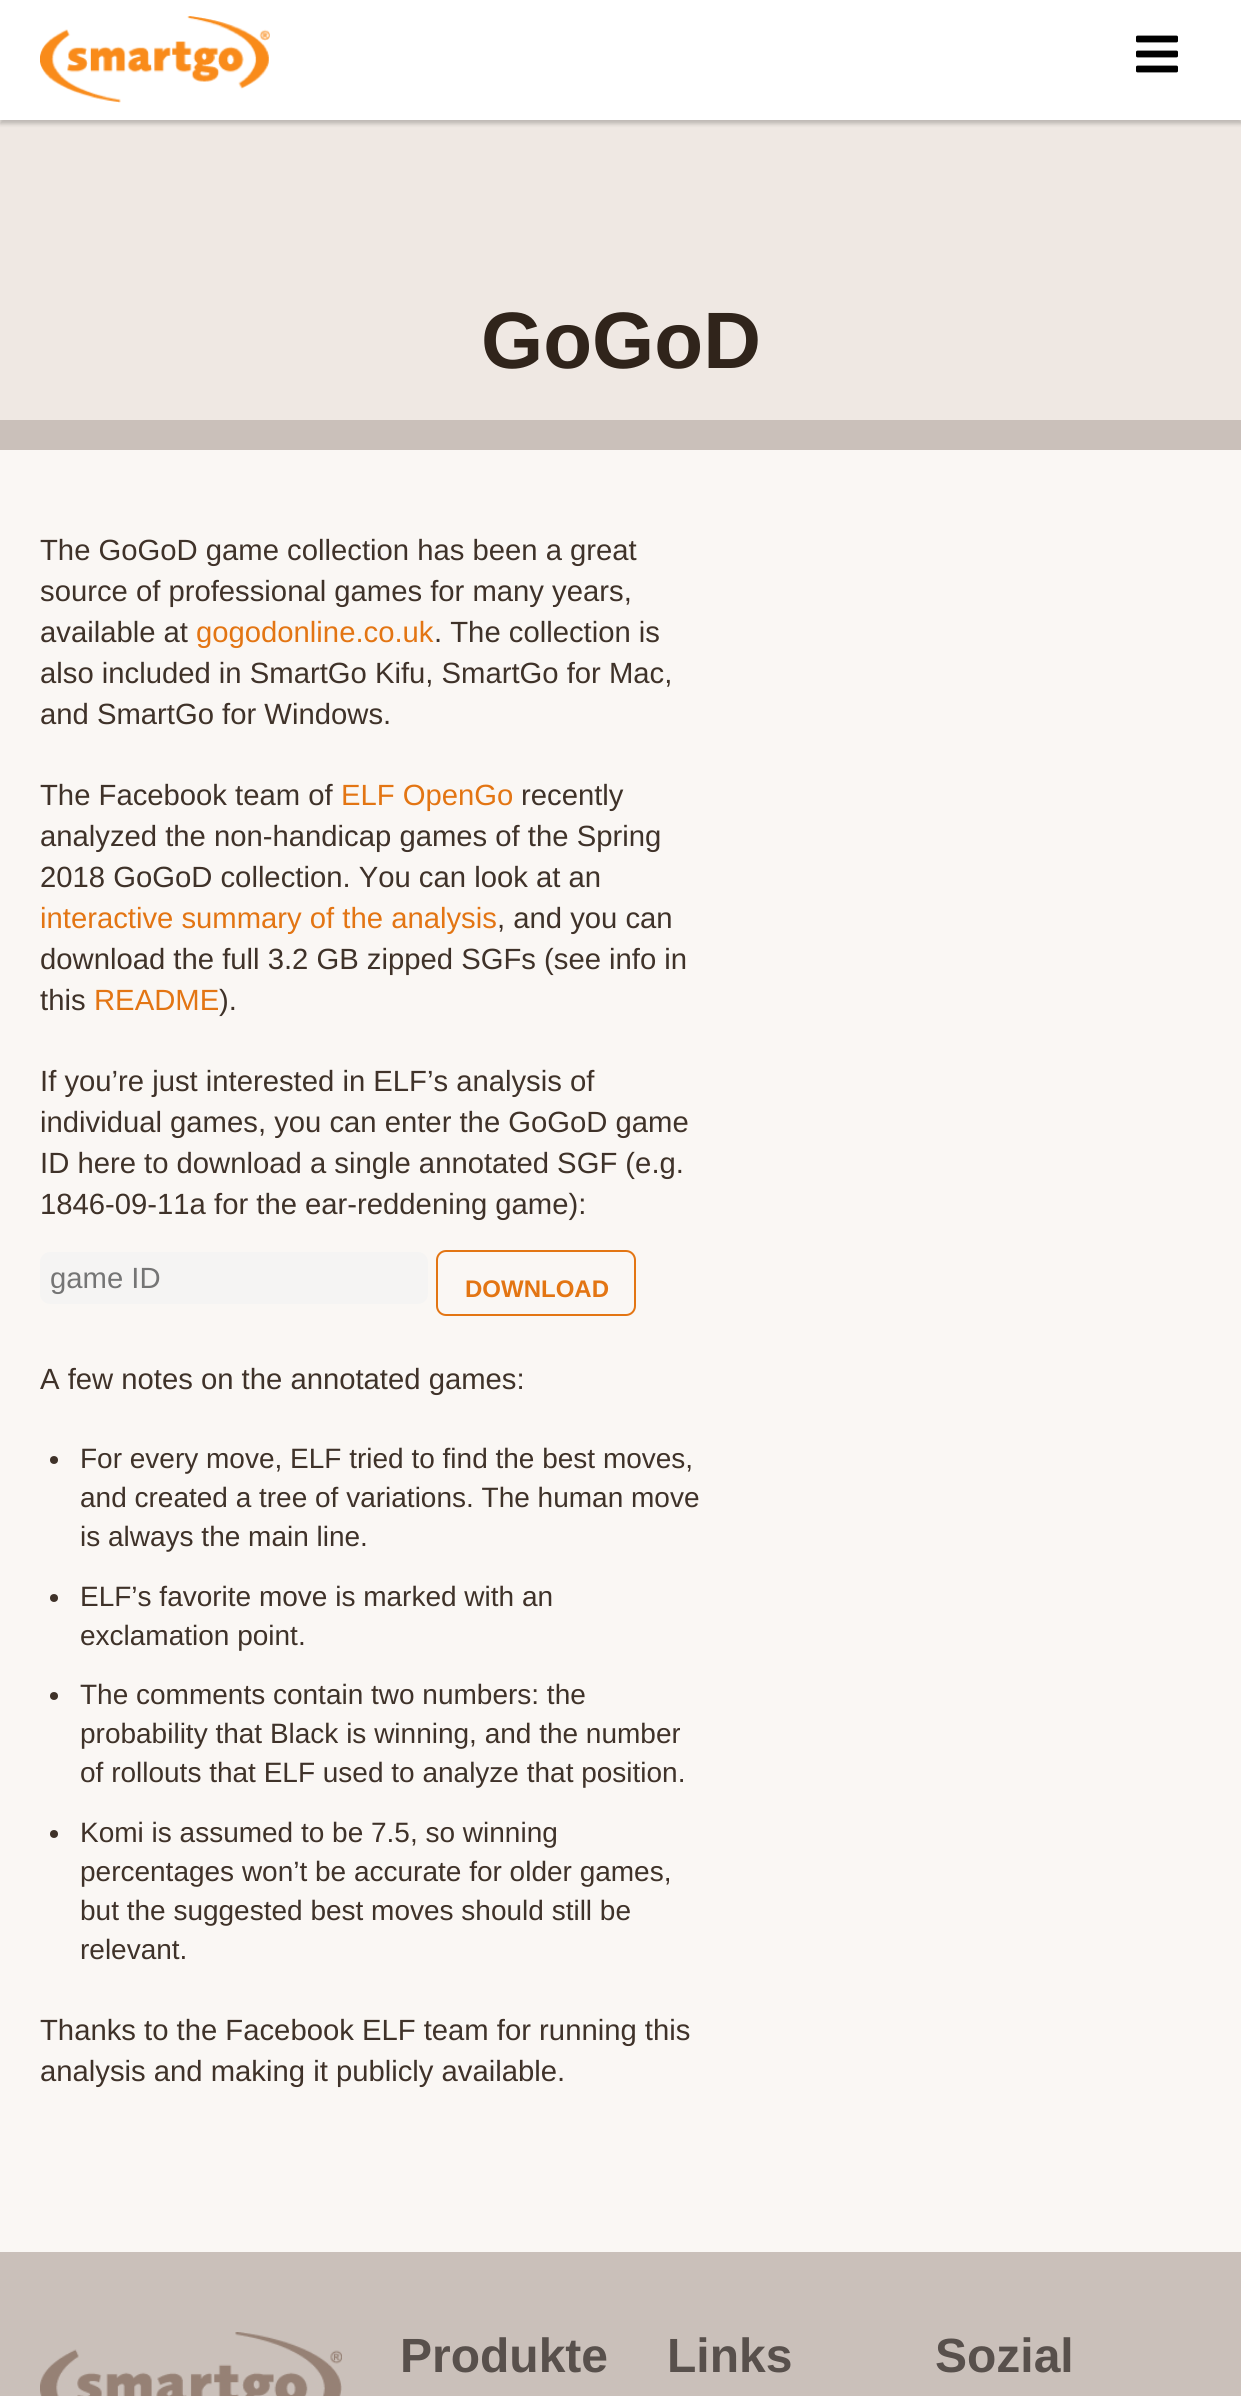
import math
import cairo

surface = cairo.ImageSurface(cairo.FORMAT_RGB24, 1241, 2396)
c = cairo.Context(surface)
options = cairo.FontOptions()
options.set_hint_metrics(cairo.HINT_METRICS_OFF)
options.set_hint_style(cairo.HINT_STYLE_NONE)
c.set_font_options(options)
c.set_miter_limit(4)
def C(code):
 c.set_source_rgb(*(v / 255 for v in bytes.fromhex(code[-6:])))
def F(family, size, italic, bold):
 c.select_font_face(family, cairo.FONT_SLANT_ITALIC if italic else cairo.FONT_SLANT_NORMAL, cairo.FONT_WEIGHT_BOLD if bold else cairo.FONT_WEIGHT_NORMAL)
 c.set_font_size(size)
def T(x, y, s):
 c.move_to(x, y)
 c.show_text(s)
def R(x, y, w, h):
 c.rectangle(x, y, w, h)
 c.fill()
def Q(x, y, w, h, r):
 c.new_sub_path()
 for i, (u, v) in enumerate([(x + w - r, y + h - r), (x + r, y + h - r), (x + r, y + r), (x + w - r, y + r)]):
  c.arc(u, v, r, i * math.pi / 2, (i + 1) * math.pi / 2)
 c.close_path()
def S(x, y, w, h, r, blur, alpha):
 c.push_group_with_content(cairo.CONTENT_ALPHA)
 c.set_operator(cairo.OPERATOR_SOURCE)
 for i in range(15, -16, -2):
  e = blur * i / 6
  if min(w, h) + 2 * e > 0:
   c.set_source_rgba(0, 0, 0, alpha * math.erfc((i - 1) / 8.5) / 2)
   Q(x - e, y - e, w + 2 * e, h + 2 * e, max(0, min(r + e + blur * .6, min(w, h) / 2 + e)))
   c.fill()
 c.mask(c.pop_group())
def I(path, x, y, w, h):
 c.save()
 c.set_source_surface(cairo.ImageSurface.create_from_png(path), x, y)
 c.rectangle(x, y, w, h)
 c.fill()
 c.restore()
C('cac0ba')
c.paint()
C('efe8e3')
R(0,120,1241,300)
C('000000')
S(0,4,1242,120,0,2,.2)
C('ffffff')
R(0,0,1241,120)
I('1.png',40,16,230,87)
I('2.png',1136,35,42,38)
F('Liberation Sans',80,0,1)
C('30241b')
T(481,368,'GoGoD')
C('faf7f4')
R(0,450,1241,1802)
F('Liberation Sans',29.25,0,0)
C('3f3229')
T(40,560,'The GoGoD game collection has been a great')
T(40,601,'source of professional games for many years,')
T(40,642,'available at')
C('e37513')
T(196,642,'gogodonline.co.uk')
C('3f3229')
T(434,642,'. The collection is')
T(40,683,'also included in SmartGo Kifu, SmartGo for Mac,')
T(40,724,'and SmartGo for Windows.')
T(40,805,'The Facebook team of')
C('e37513')
T(341,805,'ELF OpenGo')
C('3f3229')
T(521,805,'recently')
T(40,846,'analyzed the non-handicap games of the Spring')
T(40,887,'2018 GoGoD collection. You can look at an')
C('e37513')
T(40,928,'interactive summary of the analysis')
C('3f3229')
T(497,928,', and you can')
T(40,969,'download the full 3.2 GB zipped SGFs (see info in')
T(40,1010,'this')
C('e37513')
T(94,1010,'README')
C('3f3229')
T(219,1010,').')
T(40,1091,'If you’re just interested in ELF’s analysis of')
T(40,1132,'individual games, you can enter the GoGoD game')
T(40,1173,'ID here to download a single annotated SGF (e.g.')
T(40,1214,'1846-09-11a for the ear-reddening game):')
C('f5f4f3')
Q(40,1252,388,52,10)
c.fill()
C('757575')
T(50,1288,'game ID')
Q(437,1251,198,64,9)
C('e37513')
c.stroke()
F('Liberation Sans',24,0,1)
T(465,1297,'DOWNLOAD')
F('Liberation Sans',29.25,0,0)
C('3f3229')
T(40,1389,'A few notes on the annotated games:')
c.new_path()
c.arc(54,1460,4,0,2 * math.pi)
c.fill()
F('Liberation Sans',28,0,0)
T(80,1468,'For every move, ELF tried to find the best moves,')
T(80,1507,'and created a tree of variations. The human move')
T(80,1546,'is always the main line.')
c.new_path()
c.arc(54,1598,4,0,2 * math.pi)
c.fill()
T(80,1606,'ELF’s favorite move is marked with an')
T(80,1645,'exclamation point.')
c.new_path()
c.arc(54,1696,4,0,2 * math.pi)
c.fill()
T(80,1704,'The comments contain two numbers: the')
T(80,1743,'probability that Black is winning, and the number')
T(80,1782,'of rollouts that ELF used to analyze that position.')
c.new_path()
c.arc(54,1834,4,0,2 * math.pi)
c.fill()
T(80,1842,'Komi is assumed to be 7.5, so winning')
T(80,1881,'percentages won’t be accurate for older games,')
T(80,1920,'but the suggested best moves should still be')
T(80,1959,'relevant.')
F('Liberation Sans',29.25,0,0)
T(40,2040,'Thanks to the Facebook ELF team for running this')
T(40,2081,'analysis and making it publicly available.')
I('3.png',40,2332,302,64)
F('Liberation Sans',48,0,1)
C('58504c')
T(400,2372,'Produkte')
T(667,2372,'Links')
T(935,2372,'Sozial')
surface.write_to_png('o.png')
